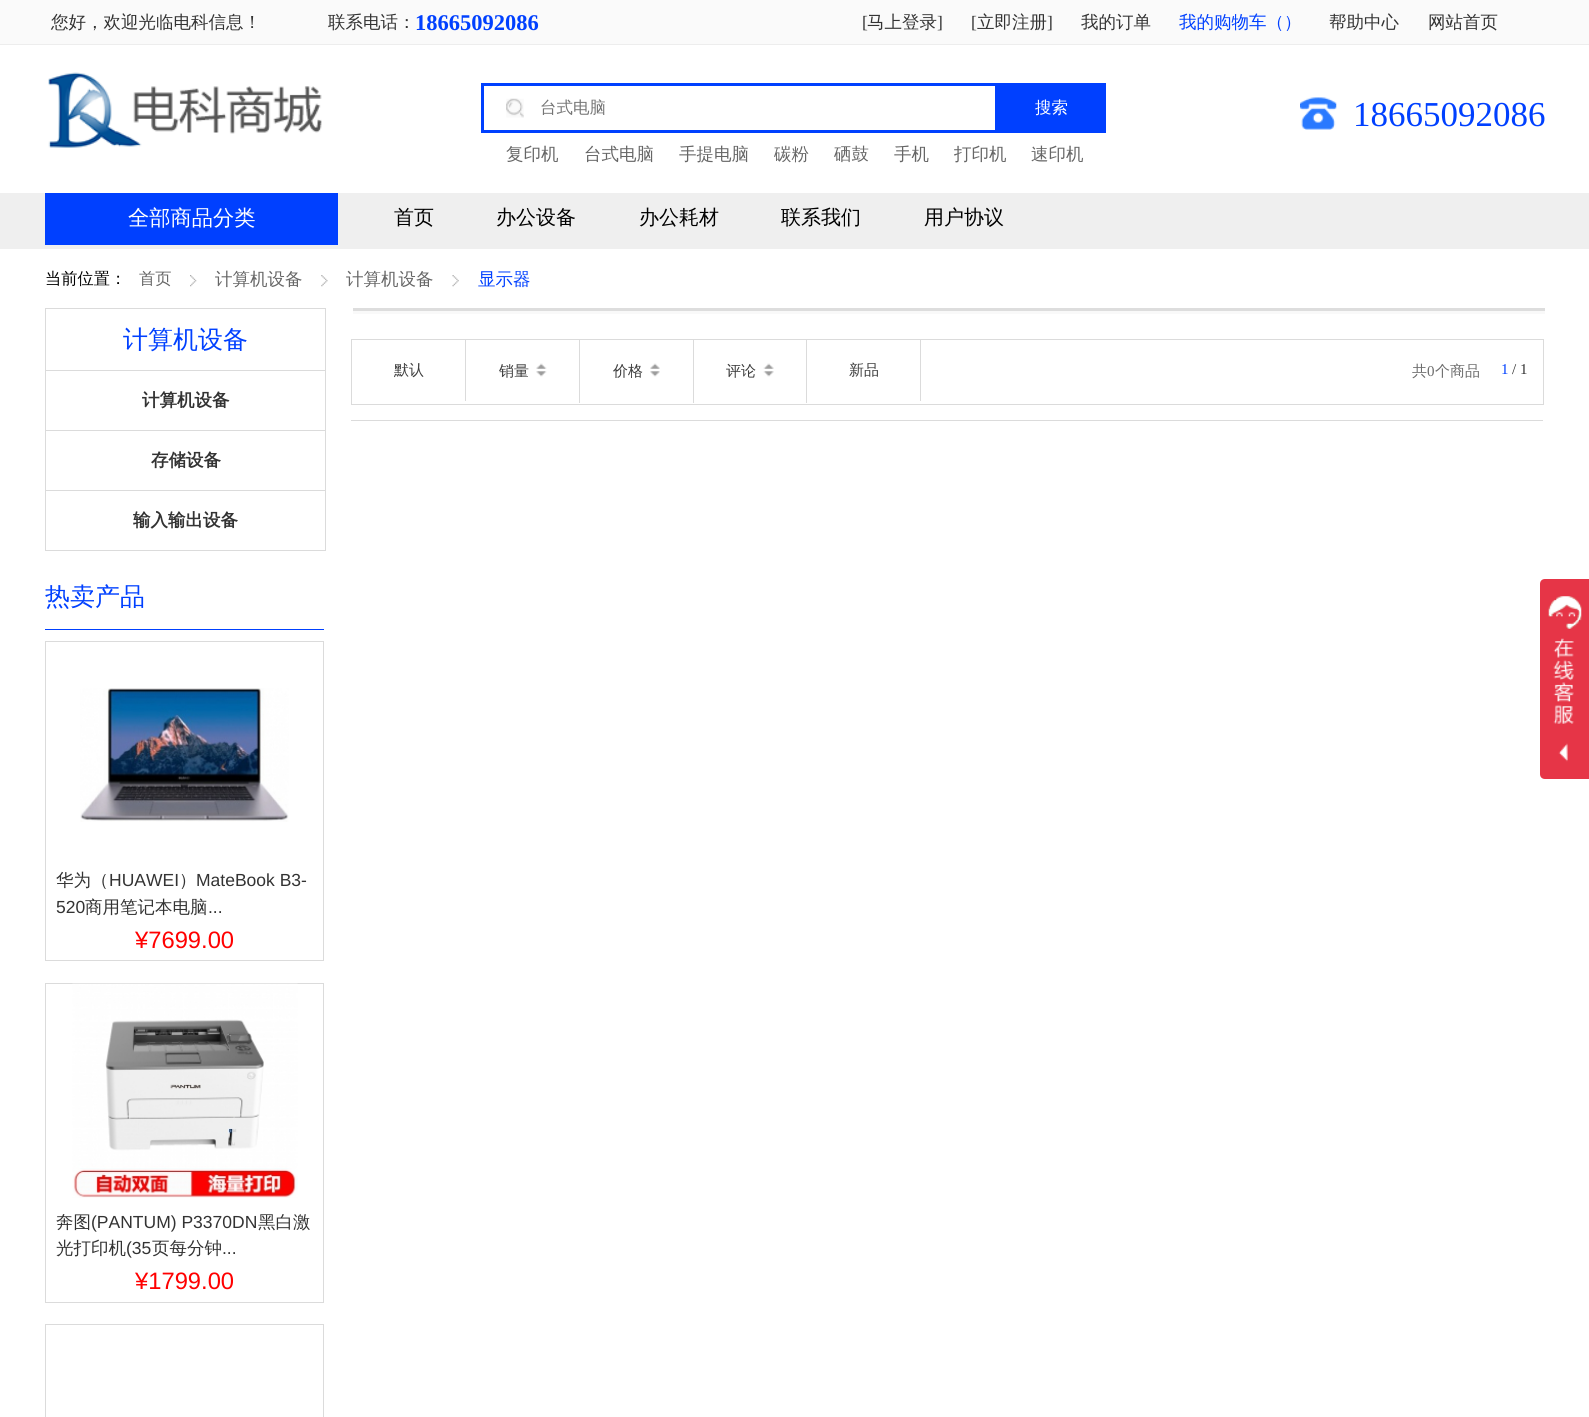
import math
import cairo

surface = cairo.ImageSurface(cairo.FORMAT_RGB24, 1589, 1417)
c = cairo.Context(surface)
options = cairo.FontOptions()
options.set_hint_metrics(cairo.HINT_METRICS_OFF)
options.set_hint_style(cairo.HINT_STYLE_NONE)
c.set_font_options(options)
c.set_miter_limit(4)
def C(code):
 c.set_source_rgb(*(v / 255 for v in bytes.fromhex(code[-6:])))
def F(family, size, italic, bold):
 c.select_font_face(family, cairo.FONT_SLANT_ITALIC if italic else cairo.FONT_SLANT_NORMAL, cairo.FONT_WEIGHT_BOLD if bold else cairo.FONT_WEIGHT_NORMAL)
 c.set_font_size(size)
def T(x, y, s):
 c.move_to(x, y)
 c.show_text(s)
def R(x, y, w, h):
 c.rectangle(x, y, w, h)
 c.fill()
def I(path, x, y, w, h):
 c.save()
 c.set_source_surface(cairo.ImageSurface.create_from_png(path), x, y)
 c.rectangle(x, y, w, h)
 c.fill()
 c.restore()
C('ffffff')
c.paint()
C('fafafa')
R(0,0,1589,44)
C('ededed')
R(0,44,1589,1)
F('WenQuanYi Zen Hei Medium',17.5,0,0)
C('333333')
T(51,28,'您好，欢迎光临电科信息！')
T(328,28,'联系电话：')
F('Liberation Serif',22.5,0,1)
C('0040ff')
T(415,30,'18665092086')
F('Liberation Serif',17.5,0,0)
C('333333')
T(862,28,'[')
F('WenQuanYi Zen Hei Medium',17.5,0,0)
T(867,28,'马上登录')
F('Liberation Serif',17.5,0,0)
T(937,28,']')
T(971,28,'[')
F('WenQuanYi Zen Hei Medium',17.5,0,0)
T(977,28,'立即注册')
F('Liberation Serif',17.5,0,0)
T(1047,28,']')
F('WenQuanYi Zen Hei Medium',17.5,0,0)
T(1081,28,'我的订单')
C('0040ff')
T(1179,28,'我的购物车（）')
C('333333')
T(1329,28,'帮助中心')
T(1428,28,'网站首页')
I('1.png',48,72,274,76)
c.rectangle(482.5,84.5,514,47)
C('0040ff')
c.set_line_width(3)
c.stroke()
I('2.png',506,98,18,20)
F('WenQuanYi Zen Hei Medium',16.5,0,0)
C('757575')
T(540,113,'台式电脑')
C('0040ff')
R(998,83,108,50)
C('ffffff')
T(1035,113,'搜索')
F('WenQuanYi Zen Hei Medium',17.5,0,0)
C('666666')
T(506,160,'复印机')
T(584,160,'台式电脑')
T(679,160,'手提电脑')
T(774,160,'碳粉')
T(834,160,'硒鼓')
T(894,160,'手机')
T(954,160,'打印机')
T(1031,160,'速印机')
I('3.png',1300,97,37,33)
F('Liberation Serif',35,0,0)
C('0040ff')
T(1353,126,'18665092086')
C('efefef')
R(0,193,1589,56)
C('0040ff')
R(45,193,293,52)
F('WenQuanYi Zen Hei Medium',21.25,0,0)
C('ffffff')
T(128,225,'全部商品分类')
F('WenQuanYi Zen Hei Medium',20,0,0)
C('000000')
T(394,224,'首页')
T(496,224,'办公设备')
T(639,224,'办公耗材')
T(781,224,'联系我们')
T(924,224,'用户协议')
F('WenQuanYi Zen Hei Medium',16.25,0,0)
T(45,284,'当前位置：')
C('666666')
T(139,284,'首页')
I('4.png',190,275,7,12)
F('WenQuanYi Zen Hei Medium',17.5,0,0)
T(215,285,'计算机设备')
I('5.png',321,275,7,12)
T(346,285,'计算机设备')
I('6.png',452,275,7,12)
C('0040ff')
T(478,285,'显示器')
C('f9f9f9')
R(353,311,1192,3)
C('dddddd')
R(353,308,1192,3)
c.rectangle(45.5,308.5,280,242)
C('dbdbdb')
c.set_line_width(1)
c.stroke()
F('WenQuanYi Zen Hei Medium',25,0,0)
C('0040ff')
T(123,348,'计算机设备')
C('dbdbdb')
R(46,370,279,1)
F('WenQuanYi Zen Hei',17.5,0,1)
C('333333')
T(142,406,'计算机设备')
C('dbdbdb')
R(46,430,279,1)
C('333333')
T(151,466,'存储设备')
C('dbdbdb')
R(46,490,279,1)
C('333333')
T(133,526,'输入输出设备')
C('0040ff')
R(45,629,279,1)
F('WenQuanYi Zen Hei Medium',25,0,0)
T(45,605,'热卖产品')
c.rectangle(45.5,641.5,278,319)
C('dbdbdb')
c.stroke()
I('7.png',80,688,209,134)
F('WenQuanYi Zen Hei Medium',17.5,0,0)
C('333333')
T(56,886,'华为（')
F('Liberation Sans',17.5,0,0)
T(109,886,'HUAWEI')
F('WenQuanYi Zen Hei Medium',17.5,0,0)
T(179,886,'）')
F('Liberation Sans',17.5,0,0)
T(196,886,'MateBook B3-')
T(56,913,'520')
F('WenQuanYi Zen Hei Medium',17.5,0,0)
T(85,913,'商用笔记本电脑')
F('Liberation Sans',17.5,0,0)
T(208,913,'...')
F('Liberation Sans',23.75,0,0)
C('ff0000')
T(135,948,'¥7699.00')
c.rectangle(45.5,983.5,278,319)
C('dbdbdb')
c.stroke()
I('8.png',72,983,226,215)
F('WenQuanYi Zen Hei Medium',17.5,0,0)
C('333333')
T(56,1228,'奔图')
F('Liberation Sans',17.5,0,0)
T(91,1228,'(PANTUM) P3370DN')
F('WenQuanYi Zen Hei Medium',17.5,0,0)
T(258,1228,'黑白激')
T(56,1254,'光打印机')
F('Liberation Sans',17.5,0,0)
T(126,1254,'(35')
F('WenQuanYi Zen Hei Medium',17.5,0,0)
T(152,1254,'页每分钟')
F('Liberation Sans',17.5,0,0)
T(222,1254,'...')
F('Liberation Sans',23.75,0,0)
C('ff0000')
T(135,1289,'¥1799.00')
c.rectangle(45.5,1324.5,278,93)
C('dbdbdb')
c.stroke()
c.rectangle(351.5,339.5,1192,65)
c.stroke()
R(465,340,1,61)
F('WenQuanYi Zen Hei Medium',15,0,0)
C('3c3c3c')
T(394,375,'默认')
C('dbdbdb')
R(579,340,1,63)
C('3c3c3c')
T(499,376,'销量')
I('9.png',536,363,11,14)
C('dbdbdb')
R(693,340,1,63)
C('3c3c3c')
T(613,376,'价格')
I('10.png',650,363,10,14)
C('dbdbdb')
R(806,340,1,63)
C('3c3c3c')
T(726,376,'评论')
I('11.png',763,363,11,14)
C('dbdbdb')
R(920,340,1,61)
C('3c3c3c')
T(849,375,'新品')
C('6c6c6c')
T(1412,376,'共')
F('Liberation Serif',15,0,0)
T(1427,376,'0')
F('WenQuanYi Zen Hei Medium',15,0,0)
T(1435,376,'个商品')
F('Liberation Serif',15,0,0)
C('0040ff')
T(1501,374,'1')
C('333333')
T(1512,374,'/ 1')
C('dbdbdb')
R(351,420,1192,1)
C('e63547')
c.new_path()
c.move_to(1545,579)
c.line_to(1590,579)
c.line_to(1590,779)
c.line_to(1545,779)
c.curve_to(1542,779,1540,777,1540,774)
c.line_to(1540,584)
c.curve_to(1540,581,1542,579,1545,579)
c.close_path()
c.fill()
I('12.png',1548,596,34,166)
surface.write_to_png('o.png')
